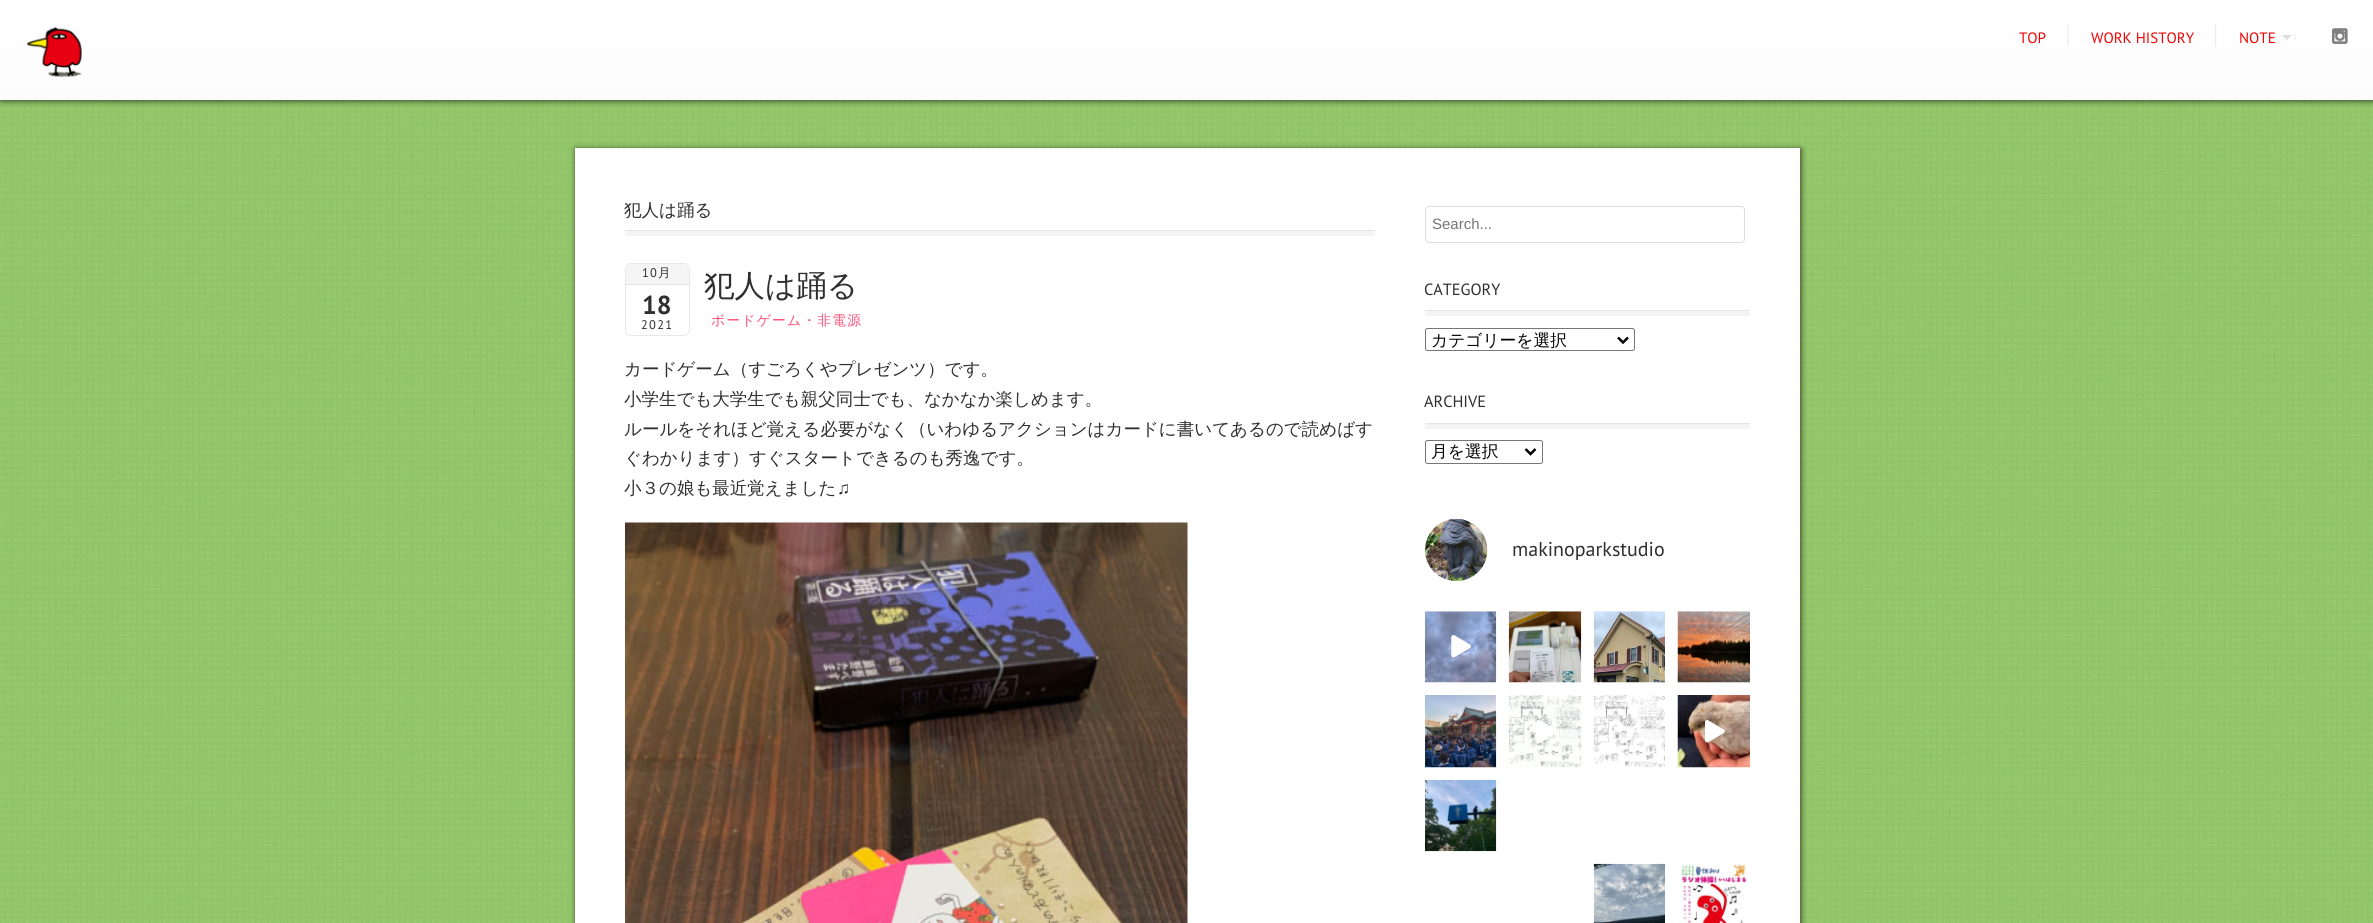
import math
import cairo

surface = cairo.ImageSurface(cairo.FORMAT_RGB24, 2373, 923)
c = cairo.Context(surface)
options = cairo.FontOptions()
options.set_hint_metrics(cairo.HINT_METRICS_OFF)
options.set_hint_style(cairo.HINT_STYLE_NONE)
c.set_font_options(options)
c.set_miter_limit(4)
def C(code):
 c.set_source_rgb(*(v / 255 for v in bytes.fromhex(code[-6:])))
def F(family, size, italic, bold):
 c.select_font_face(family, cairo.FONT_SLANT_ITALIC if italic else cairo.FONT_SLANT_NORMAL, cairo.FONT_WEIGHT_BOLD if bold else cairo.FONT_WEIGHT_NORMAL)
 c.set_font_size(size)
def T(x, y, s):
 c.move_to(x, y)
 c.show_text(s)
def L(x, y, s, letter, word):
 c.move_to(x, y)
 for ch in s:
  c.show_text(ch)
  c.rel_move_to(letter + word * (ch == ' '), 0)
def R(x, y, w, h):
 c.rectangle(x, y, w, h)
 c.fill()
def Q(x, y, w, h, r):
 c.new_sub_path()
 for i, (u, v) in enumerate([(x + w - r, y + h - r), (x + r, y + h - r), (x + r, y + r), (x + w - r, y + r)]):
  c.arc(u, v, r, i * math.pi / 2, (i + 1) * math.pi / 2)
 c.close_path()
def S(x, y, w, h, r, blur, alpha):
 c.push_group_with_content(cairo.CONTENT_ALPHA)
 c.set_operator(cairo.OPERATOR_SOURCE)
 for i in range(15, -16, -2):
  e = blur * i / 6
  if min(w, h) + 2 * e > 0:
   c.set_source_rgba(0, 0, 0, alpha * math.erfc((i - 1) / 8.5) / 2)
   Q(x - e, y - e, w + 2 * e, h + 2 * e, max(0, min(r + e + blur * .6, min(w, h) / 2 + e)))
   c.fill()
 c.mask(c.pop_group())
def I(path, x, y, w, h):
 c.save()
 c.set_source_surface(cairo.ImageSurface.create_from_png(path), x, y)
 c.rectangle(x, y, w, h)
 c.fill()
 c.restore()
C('95c96c')
c.paint()
I('1.png',0,100,2373,823)
C('000000')
S(1,1,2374,100,0,3,.7)
gradient = cairo.LinearGradient(1187,0,1187,100)
gradient.add_color_stop_rgba(0,1,1,1,1)
gradient.add_color_stop_rgba(1,0.988,0.988,0.988,1)
c.set_source(gradient)
R(0,0,2373,100)
I('2.png',27,26,55,52)
F('PT Sans',15,0,0)
C('f00303')
T(2019,43,'TOP')
c.new_path()
c.move_to(2068,25)
c.line_to(2068,47.5)
C('dddddd')
c.set_line_width(1.2)
c.set_dash([1.25,1.25])
c.stroke()
C('f00303')
T(2091,43,'WORK HISTORY')
c.new_path()
c.move_to(2215.5,25)
c.line_to(2215.5,47.5)
C('dddddd')
c.stroke()
c.new_path()
c.move_to(2295.5,35)
c.line_to(2295.5,36)
c.move_to(2295.5,37.5)
c.line_to(2295.5,39)
c.set_dash([])
c.stroke()
C('f00303')
T(2239,43,'NOTE')
I('3.png',2282,35,10,5)
I('4.png',2332,28,16,16)
C('000000')
S(576,149,1225,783,0,3,.7)
C('ffffff')
R(575,148,1225,775)
C('f4f4f4')
R(625,231,750,5)
C('e6e6e6')
R(625,230,750,1)
F('WenQuanYi Zen Hei Medium',17.5,0,0)
C('302e30')
T(624,216,'犯人は踊る')
Q(625.5,263.5,64,72,5.5)
C('e8e8e8')
c.set_line_width(1)
c.stroke()
C('f5f5f5')
c.new_path()
c.move_to(632,264)
c.line_to(683,264)
c.curve_to(686.5,264,689,266.5,689,270)
c.line_to(689,285)
c.line_to(626,285)
c.line_to(626,270)
c.curve_to(626,266.5,628.5,264,632,264)
c.close_path()
c.fill()
C('e3e3e3')
R(626,284,63,1)
F('PT Sans',12.5,0,0)
C('302e30')
L(642,277,'10',1.25,0)
F('WenQuanYi Zen Hei Medium',12.5,0,0)
L(658,277,'月',1.25,0)
F('PT Sans',26,0,1)
T(642,314,'18')
F('PT Sans',12.5,0,0)
L(641,329,'2021',1.25,0)
F('WenQuanYi Zen Hei Medium',30.5,0,0)
T(704,296,'犯人は踊る')
F('WenQuanYi Zen Hei Medium',13.75,0,0)
C('fc4e77')
L(711,325,'ボードゲーム・非電源',1.25,0)
F('WenQuanYi Zen Hei Medium',17.5,0,0)
C('302e30')
T(624,375,'カードゲーム（すごろくやプレゼンツ）です。')
T(624,405,'小学生でも大学生でも親父同士でも、なかなか楽しめます。')
T(624,435,'ルールをそれほど覚える必要がなく（いわゆるアクションはカードに書いてあるので読めばす')
T(624,464,'ぐわかります）すぐスタートできるのも秀逸です。')
T(624,494,'小３の娘も最近覚えました')
F('Liberation Sans',17.5,0,0)
T(837,494,'♫')
I('5.png',625,522,563,401)
Q(1425.5,206.5,319,36,3.5)
C('dddddd')
c.stroke()
F('Liberation Sans',15,0,0)
C('757575')
T(1432,229,'Search...')
C('f4f4f4')
R(1425,311,325,5)
C('e6e6e6')
R(1425,310,325,1)
F('PT Sans',16.25,0,0)
C('302e30')
T(1424,295,'CATEGORY')
Q(1425.5,328.5,209,22,2)
C('767676')
c.stroke()
c.new_path()
c.move_to(1618,337.5)
c.line_to(1623,342.5)
c.line_to(1628,337.5)
C('000000')
c.set_line_width(2.5)
c.stroke()
F('WenQuanYi Zen Hei Medium',16.75,0,0)
T(1431,346,'カテゴリーを選択')
C('f4f4f4')
R(1425,424,325,5)
C('e6e6e6')
R(1425,423,325,1)
F('PT Sans',16.25,0,0)
C('302e30')
T(1424,407,'ARCHIVE')
Q(1425.5,440.5,117,23,2)
C('767676')
c.set_line_width(1)
c.stroke()
c.new_path()
c.move_to(1525.5,449)
c.line_to(1530.5,454)
c.line_to(1535.5,449)
C('000000')
c.set_line_width(2.5)
c.stroke()
F('WenQuanYi Zen Hei Medium',16.75,0,0)
T(1431,457,'月を選択')
I('6.png',1425,518,63,64)
F('PT Sans',20,0,0)
C('302e30')
T(1512,556,'makinoparkstudio')
I('7.png',1425,611,72,72)
I('8.png',1451,635,20,23)
I('9.png',1508,611,74,72)
I('10.png',1593,611,72,72)
I('11.png',1677,611,73,72)
I('12.png',1425,695,72,73)
I('13.png',1508,695,74,73)
I('14.png',1536,720,20,23)
I('15.png',1593,695,72,73)
I('16.png',1644,701,15,15)
I('17.png',1677,695,73,73)
I('18.png',1705,720,20,23)
I('19.png',1425,780,72,72)
I('20.png',1593,863,72,60)
I('21.png',1678,864,69,59)
surface.write_to_png('o.png')
